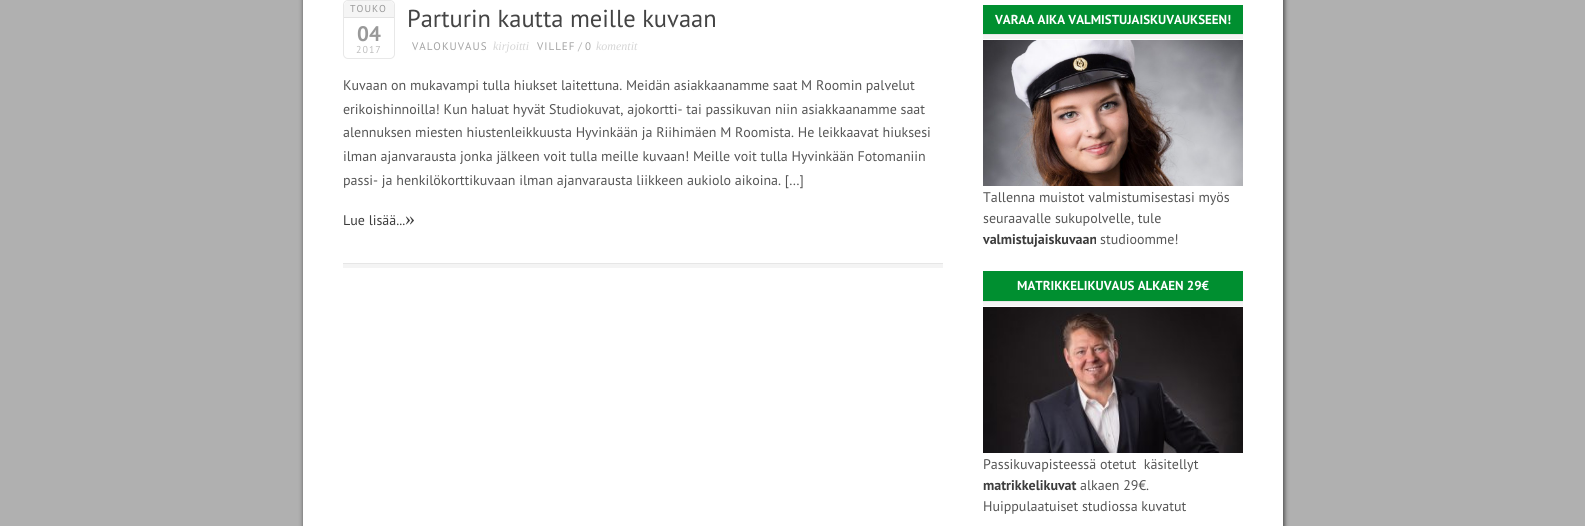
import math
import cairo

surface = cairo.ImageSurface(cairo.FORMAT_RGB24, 1585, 526)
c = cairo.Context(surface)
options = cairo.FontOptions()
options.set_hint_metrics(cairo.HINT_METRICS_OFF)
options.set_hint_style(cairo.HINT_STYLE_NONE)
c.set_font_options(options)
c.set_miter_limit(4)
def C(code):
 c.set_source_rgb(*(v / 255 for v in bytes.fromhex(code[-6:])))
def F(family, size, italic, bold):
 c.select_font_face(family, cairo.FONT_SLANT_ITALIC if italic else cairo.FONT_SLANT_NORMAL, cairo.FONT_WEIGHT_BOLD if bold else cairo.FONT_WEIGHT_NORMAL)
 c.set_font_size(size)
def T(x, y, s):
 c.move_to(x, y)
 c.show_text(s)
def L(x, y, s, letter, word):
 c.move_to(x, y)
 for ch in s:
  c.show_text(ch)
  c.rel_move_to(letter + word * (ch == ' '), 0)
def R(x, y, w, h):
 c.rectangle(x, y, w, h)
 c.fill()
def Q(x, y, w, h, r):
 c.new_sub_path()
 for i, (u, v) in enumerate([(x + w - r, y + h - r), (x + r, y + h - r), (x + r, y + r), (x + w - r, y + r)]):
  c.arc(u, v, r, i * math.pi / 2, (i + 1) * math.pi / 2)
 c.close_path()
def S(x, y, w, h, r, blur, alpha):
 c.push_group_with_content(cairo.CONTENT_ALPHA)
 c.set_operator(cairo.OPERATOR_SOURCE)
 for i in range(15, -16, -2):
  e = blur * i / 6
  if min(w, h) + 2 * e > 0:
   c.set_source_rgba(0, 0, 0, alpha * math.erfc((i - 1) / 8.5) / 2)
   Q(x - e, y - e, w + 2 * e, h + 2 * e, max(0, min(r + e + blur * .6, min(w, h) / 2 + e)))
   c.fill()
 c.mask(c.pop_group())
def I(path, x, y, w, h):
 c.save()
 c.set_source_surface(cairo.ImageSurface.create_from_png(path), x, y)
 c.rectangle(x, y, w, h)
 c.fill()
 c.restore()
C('b0b0b0')
c.paint()
C('000000')
S(304,-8,980,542,0,2.5,.7)
C('ffffff')
R(303,0,980,526)
Q(343.5,.5,51,58,4.5)
C('e8e8e8')
c.set_line_width(1)
c.stroke()
C('f5f5f5')
c.new_path()
c.move_to(349,1)
c.line_to(389,1)
c.curve_to(392,1,394,3,394,6)
c.line_to(394,18)
c.line_to(344,18)
c.line_to(344,6)
c.curve_to(344,3,346,1,349,1)
c.close_path()
c.fill()
C('e3e3e3')
R(344,17,50,1)
F('PT Sans',10,0,0)
C('999999')
L(350,12,'TOUKO',1,0)
F('PT Sans',21,0,1)
T(357,41,'04')
F('PT Sans',10,0,0)
C('bebebe')
L(356,53,'2017',1,0)
F('PT Sans',24.5,0,0)
C('444444')
T(407,27,'Parturin kautta meille kuvaan')
F('PT Sans',11,0,0)
C('a3a3a3')
L(412,50,'VALOKUVAUS',1,0)
F('Liberation Serif',12,1,0)
C('d5d5d5')
T(493,50,'kirjoitti')
F('PT Sans',11,0,0)
C('a3a3a3')
L(537,50,'VILLEF',1,0)
C('b5b5b5')
T(578,50,'/')
C('a3a3a3')
L(585,50,'0',1,0)
F('Liberation Serif',12,1,0)
C('d5d5d5')
T(596,50,'komentit')
C('f4f4f4')
R(343,264,600,4)
C('e6e6e6')
R(343,263,600,1)
F('PT Sans',14,0,0)
C('555555')
T(343,90,'Kuvaan on mukavampi tulla hiukset laitettuna. Meidän asiakkaanamme saat M Roomin palvelut')
T(343,114,'erikoishinnoilla! Kun haluat hyvät Studiokuvat, ajokortti- tai passikuvan niin asiakkaanamme saat')
T(343,137,'alennuksen miesten hiustenleikkuusta Hyvinkään ja Riihimäen M Roomista. He leikkaavat hiuksesi')
T(343,161,'ilman ajanvarausta jonka jälkeen voit tulla meille kuvaan! Meille voit tulla Hyvinkään Fotomaniin')
T(343,185,'passi- ja henkilökorttikuvaan ilman ajanvarausta liikkeen aukiolo aikoina. […]')
C('3d3d3d')
T(343,225,'Lue lisää...')
F('Liberation Serif',20,0,0)
T(405,225,'»')
C('f4f4f4')
R(983,35,260,4)
C('008f30')
R(983,5,260,29)
C('e6e6e6')
R(983,34,260,1)
F('PT Sans',13,0,1)
C('ffffff')
T(995,24,'VARAA AIKA VALMISTUJAISKUVAUKSEEN!')
I('1.png',983,40,260,146)
F('PT Sans',14,0,0)
C('555555')
T(983,202,'Tallenna muistot valmistumisestasi myös')
T(983,223,'seuraavalle sukupolvelle, tule')
F('PT Sans',14,0,1)
C('3d3d3d')
T(983,244,'valmistujaiskuvaan')
F('PT Sans',14,0,0)
C('555555')
T(1100,244,'studioomme!')
C('f4f4f4')
R(983,302,260,4)
C('008f30')
R(983,271,260,30)
C('e6e6e6')
R(983,301,260,1)
F('PT Sans',13,0,1)
C('ffffff')
T(1017,290,'MATRIKKELIKUVAUS ALKAEN 29€')
I('2.png',983,307,260,146)
F('PT Sans',14,0,0)
C('555555')
T(983,469,'Passikuvapisteessä otetut  käsitellyt')
F('PT Sans',14,0,1)
C('3d3d3d')
T(983,490,'matrikkelikuvat')
F('PT Sans',14,0,0)
C('555555')
T(1080,490,'alkaen 29€.')
T(983,511,'Huippulaatuiset studiossa kuvatut')
surface.write_to_png('o.png')
